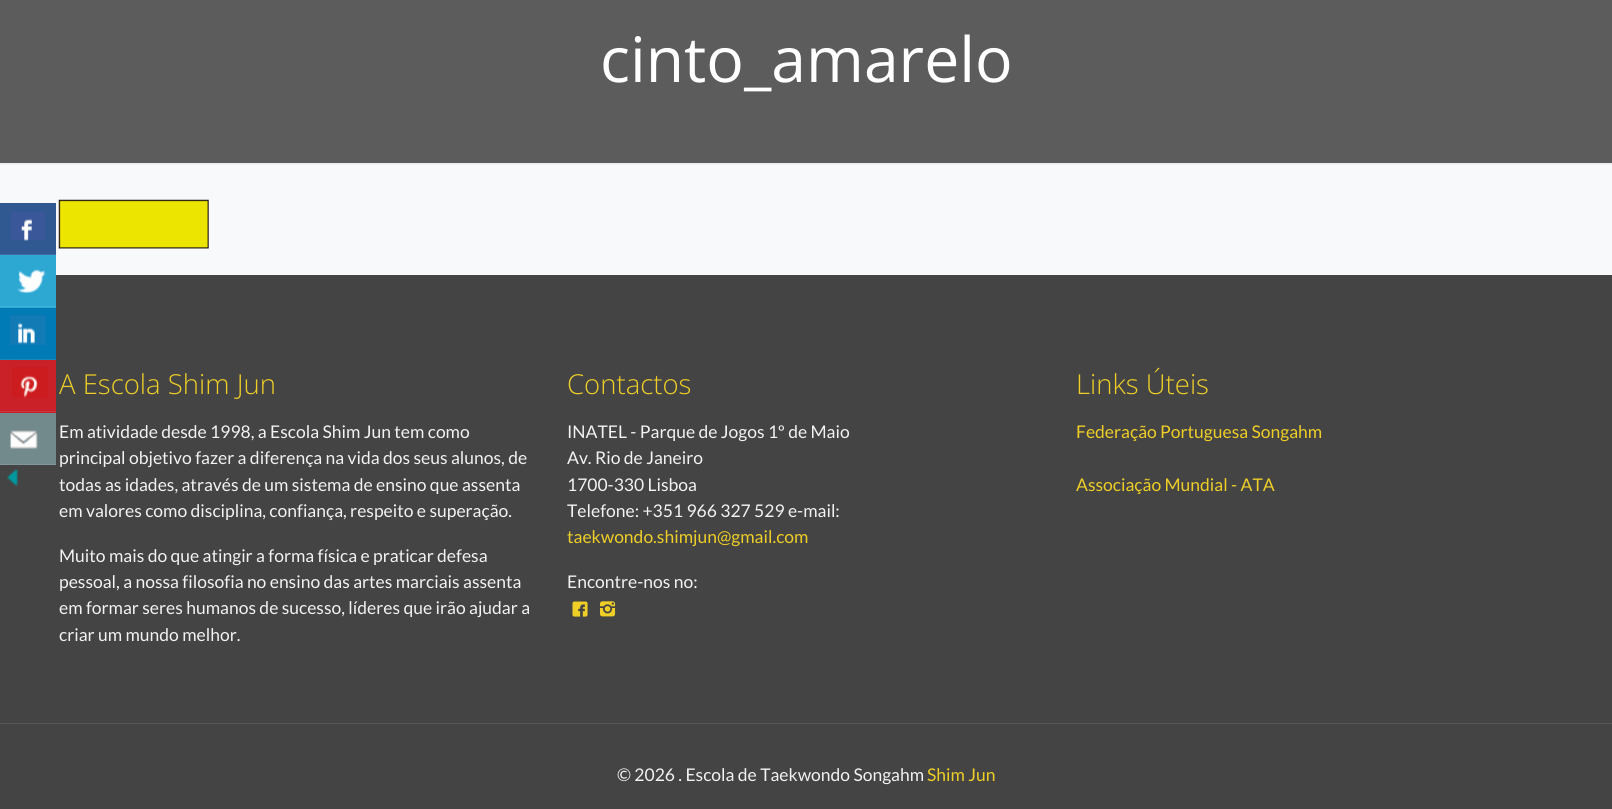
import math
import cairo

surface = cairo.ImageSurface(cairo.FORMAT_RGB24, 1612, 809)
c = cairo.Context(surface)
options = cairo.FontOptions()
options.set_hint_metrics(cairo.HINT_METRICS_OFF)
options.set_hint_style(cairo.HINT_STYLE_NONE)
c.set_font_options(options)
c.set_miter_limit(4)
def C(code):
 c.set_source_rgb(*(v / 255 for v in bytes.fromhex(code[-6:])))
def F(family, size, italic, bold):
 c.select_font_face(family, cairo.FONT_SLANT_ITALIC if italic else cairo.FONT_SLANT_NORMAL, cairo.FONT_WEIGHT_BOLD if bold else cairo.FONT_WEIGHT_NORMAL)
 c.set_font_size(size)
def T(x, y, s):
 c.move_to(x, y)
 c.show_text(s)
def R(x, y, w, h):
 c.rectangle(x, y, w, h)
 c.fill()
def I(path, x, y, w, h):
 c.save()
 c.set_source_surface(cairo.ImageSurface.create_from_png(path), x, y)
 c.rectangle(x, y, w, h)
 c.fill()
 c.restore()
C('f7f9fa')
c.paint()
C('305891')
R(0,203,56,51)
C('45699c')
R(0,254,56,1)
I('1.png',11,212,35,29)
C('444444')
R(0,275,1612,534)
C('2ca8d2')
R(0,255,56,53)
C('41b1d7')
R(0,306,56,1)
I('2.png',17,269,29,24)
C('007bb6')
R(0,308,56,51)
C('1a88bd')
R(0,359,56,1)
I('3.png',10,315,36,31)
C('ca2027')
R(0,360,56,53)
C('cf363d')
R(0,411,56,1)
I('4.png',12,367,36,31)
C('738a8d')
R(0,413,56,51)
C('819698')
R(0,464,56,1)
I('5.png',10,430,28,19)
I('6.png',7,469,11,17)
C('5c5c5c')
R(0,0,1612,163)
F('Open Sans',62.5,0,0)
C('ffffff')
T(600,82,'cinto_amarelo')
I('7.png',0,163,1612,2)
I('8.png',58,199,151,50)
F('Open Sans Light',27.5,0,0)
C('eece27')
T(59,394,'A Escola Shim Jun')
F('Lato',17.5,0,0)
C('f2f2f2')
T(59,438,'Em atividade desde 1998, a Escola Shim Jun tem como')
T(59,464,'principal objetivo fazer a diferença na vida dos seus alunos, de')
T(59,491,'todas as idades, através de um sistema de ensino que assenta')
T(59,517,'em valores como disciplina, confiança, respeito e superação.')
T(59,562,'Muito mais do que atingir a forma física e praticar defesa')
T(59,588,'pessoal, a nossa filosofia no ensino das artes marciais assenta')
T(59,614,'em formar seres humanos de sucesso, líderes que irão ajudar a')
T(59,641,'criar um mundo melhor.')
F('Open Sans Light',27.5,0,0)
C('eece27')
T(567,394,'Contactos')
F('Lato',17.5,0,0)
C('f2f2f2')
T(567,438,'INATEL - Parque de Jogos 1º de Maio')
T(567,464,'Av. Rio de Janeiro')
T(567,491,'1700-330 Lisboa')
T(567,517,'Telefone: +351 966 327 529 e-mail:')
C('eece27')
T(567,543,'taekwondo.shimjun@gmail.com')
C('f2f2f2')
T(567,588,'Encontre-nos no:')
I('9.png',572,601,16,16)
I('10.png',600,601,16,16)
F('Open Sans Light',27.5,0,0)
C('eece27')
T(1076,394,'Links Úteis')
F('Lato',17.5,0,0)
T(1076,438,'Federação Portuguesa Songahm')
T(1076,491,'Associação Mundial - ATA')
C('575757')
R(0,723,1612,1)
C('f2f2f2')
T(617,781,'© 2026 . Escola de Taekwondo Songahm')
C('eece27')
T(927,781,'Shim Jun')
surface.write_to_png('o.png')
